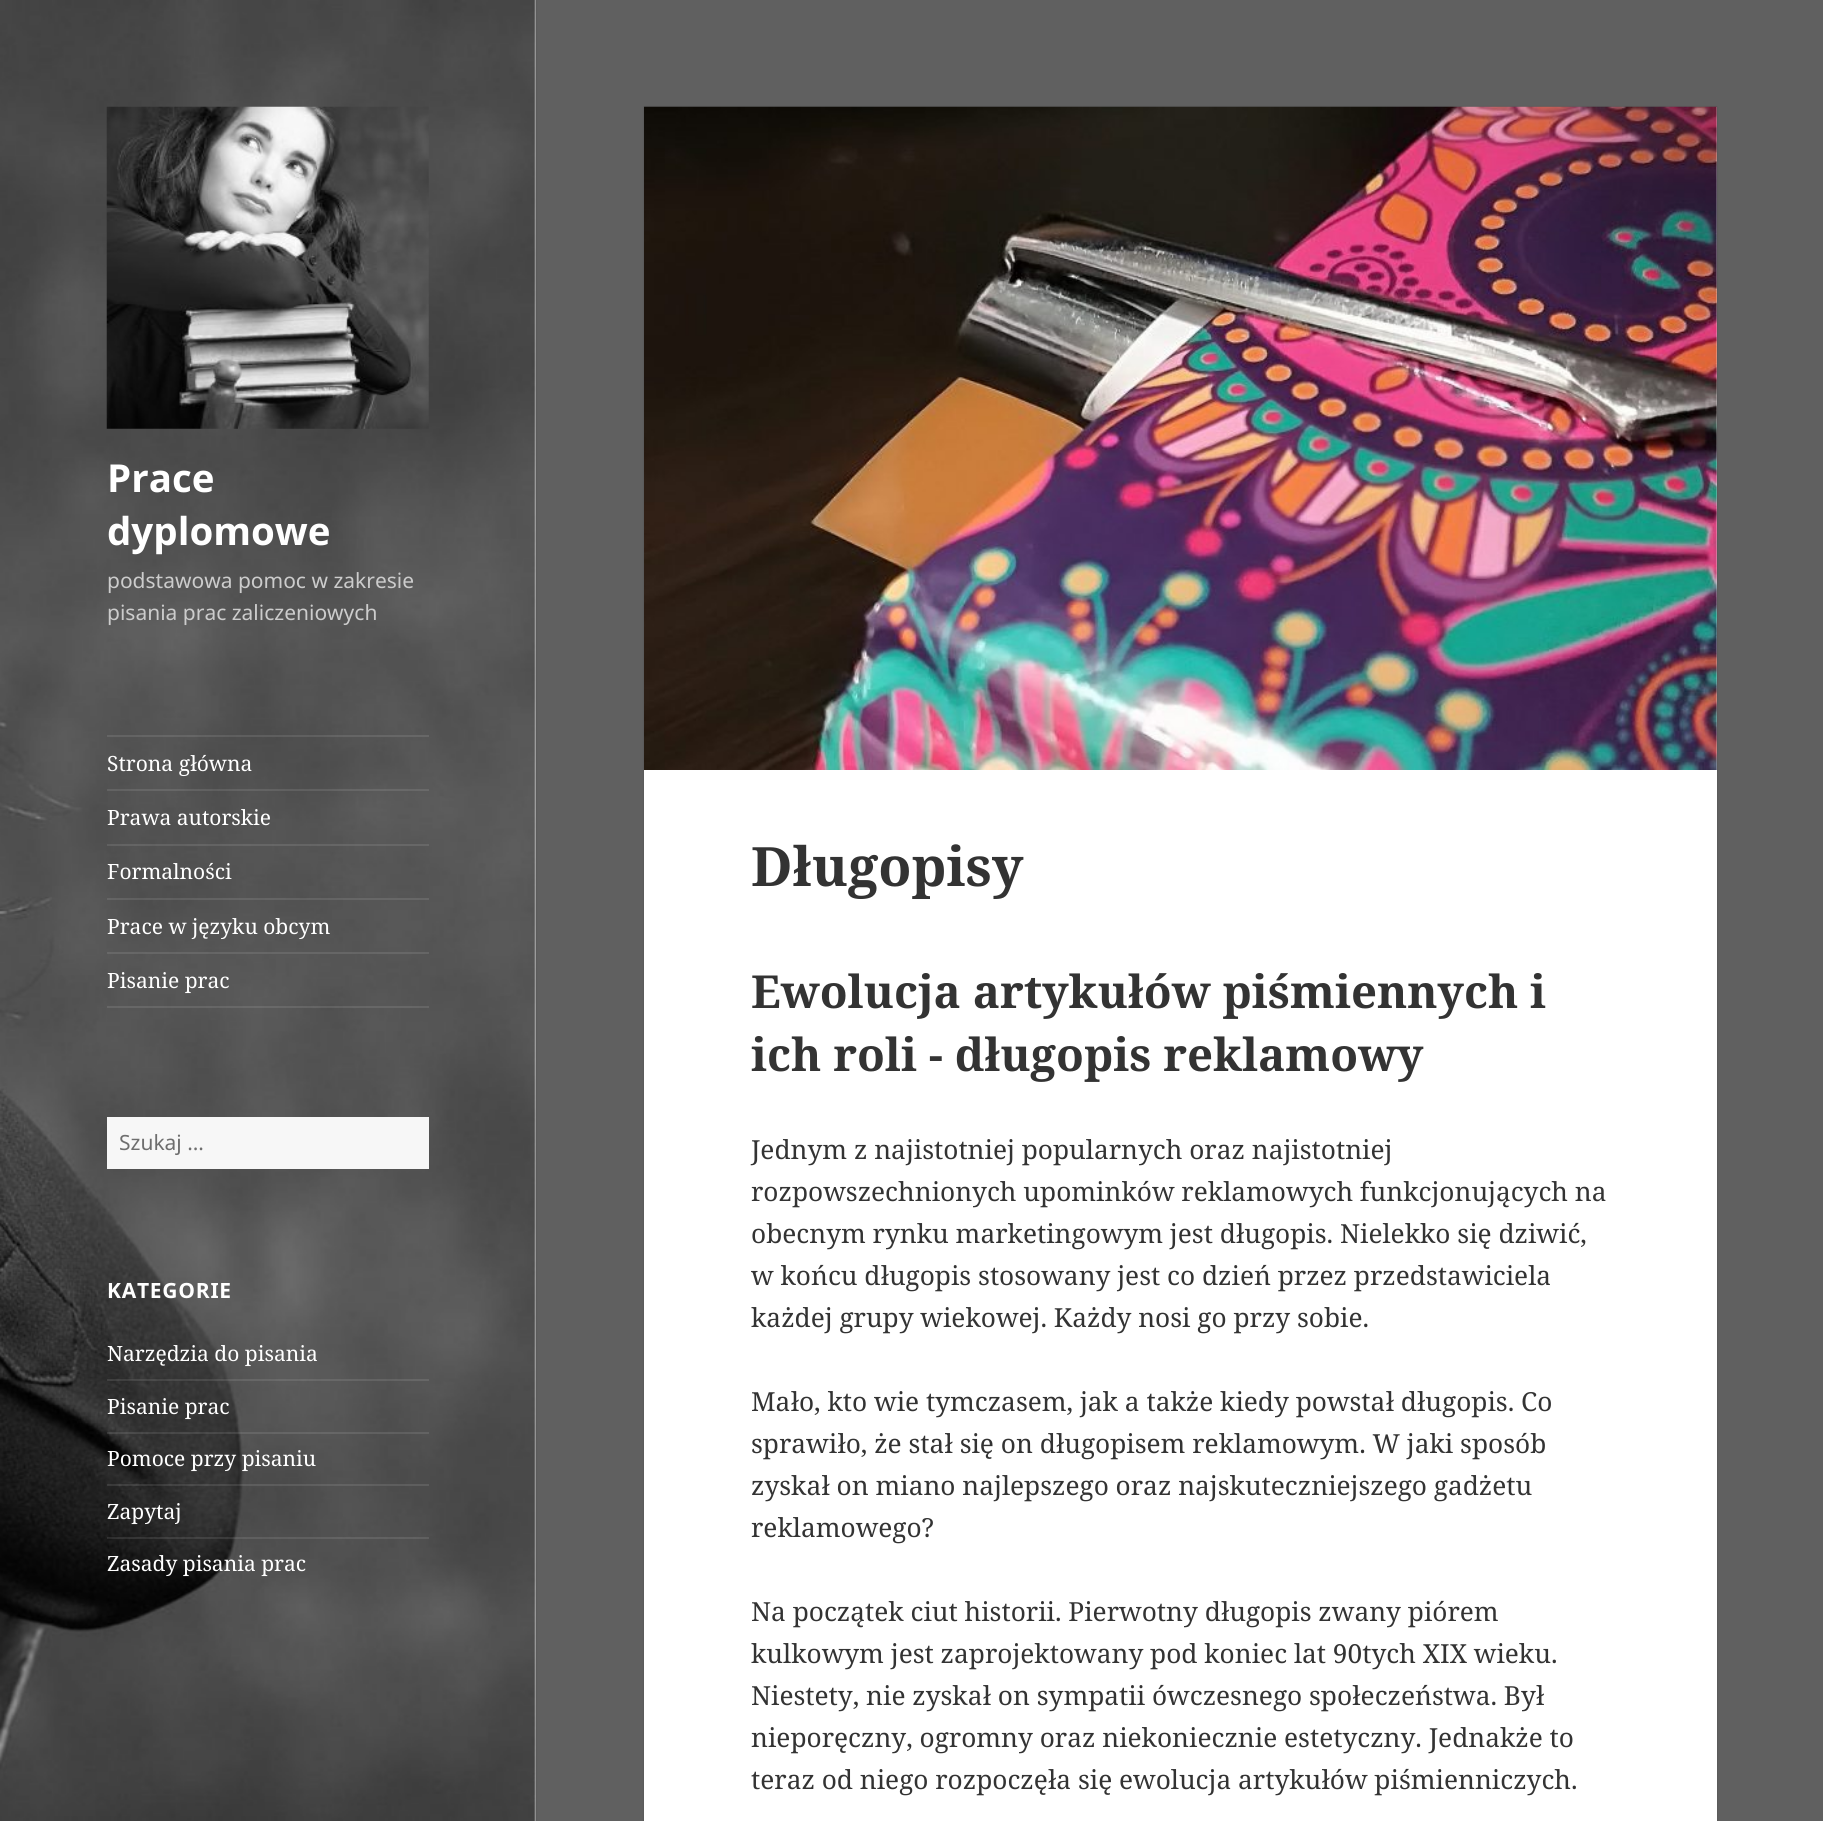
import math
import cairo

surface = cairo.ImageSurface(cairo.FORMAT_RGB24, 1823, 1821)
c = cairo.Context(surface)
options = cairo.FontOptions()
options.set_hint_metrics(cairo.HINT_METRICS_OFF)
options.set_hint_style(cairo.HINT_STYLE_NONE)
c.set_font_options(options)
c.set_miter_limit(4)
def C(code):
 c.set_source_rgb(*(v / 255 for v in bytes.fromhex(code[-6:])))
def F(family, size, italic, bold):
 c.select_font_face(family, cairo.FONT_SLANT_ITALIC if italic else cairo.FONT_SLANT_NORMAL, cairo.FONT_WEIGHT_BOLD if bold else cairo.FONT_WEIGHT_NORMAL)
 c.set_font_size(size)
def T(x, y, s):
 c.move_to(x, y)
 c.show_text(s)
def L(x, y, s, letter, word):
 c.move_to(x, y)
 for ch in s:
  c.show_text(ch)
  c.rel_move_to(letter + word * (ch == ' '), 0)
def R(x, y, w, h):
 c.rectangle(x, y, w, h)
 c.fill()
def Q(x, y, w, h, r):
 c.new_sub_path()
 for i, (u, v) in enumerate([(x + w - r, y + h - r), (x + r, y + h - r), (x + r, y + r), (x + w - r, y + r)]):
  c.arc(u, v, r, i * math.pi / 2, (i + 1) * math.pi / 2)
 c.close_path()
def S(x, y, w, h, r, blur, alpha):
 c.push_group_with_content(cairo.CONTENT_ALPHA)
 c.set_operator(cairo.OPERATOR_SOURCE)
 for i in range(15, -16, -2):
  e = blur * i / 6
  if min(w, h) + 2 * e > 0:
   c.set_source_rgba(0, 0, 0, alpha * math.erfc((i - 1) / 8.5) / 2)
   Q(x - e, y - e, w + 2 * e, h + 2 * e, max(0, min(r + e + blur * .6, min(w, h) / 2 + e)))
   c.fill()
 c.mask(c.pop_group())
def I(path, x, y, w, h):
 c.save()
 c.set_source_surface(cairo.ImageSurface.create_from_png(path), x, y)
 c.rectangle(x, y, w, h)
 c.fill()
 c.restore()
C('606060')
c.paint()
C('000000')
S(0,0,536,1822,0,1,.15)
C('ffffff')
R(534,0,2,1821)
I('1.png',0,0,536,1821)
I('2.png',106,106,323,323)
F('Noto Sans',38.5,0,1)
T(107,492,'Prace')
T(107,545,'dyplomowe')
F('Noto Sans',21,0,0)
C('cccccc')
T(107,588,'podstawowa pomoc w zakresie')
T(107,620,'pisania prac zaliczeniowych')
c.set_source_rgba(1,1,1,0.1)
R(107,735,322,2)
R(107,1006,322,2)
F('Noto Serif',21,0,0)
C('ffffff')
T(107,771,'Strona główna')
c.set_source_rgba(1,1,1,0.1)
R(107,789,322,2)
C('ffffff')
T(107,825,'Prawa autorskie')
c.set_source_rgba(1,1,1,0.1)
R(107,844,322,2)
C('ffffff')
T(107,879,'Formalności')
c.set_source_rgba(1,1,1,0.1)
R(107,898,322,2)
C('ffffff')
T(107,934,'Prace w języku obcym')
c.set_source_rgba(1,1,1,0.1)
R(107,952,322,2)
C('ffffff')
T(107,988,'Pisanie prac')
C('f7f7f7')
R(107,1117,322,52)
F('Noto Sans',21,0,0)
C('6e6e6e')
T(119,1150,'Szukaj …')
F('Noto Sans',21,0,1)
C('ffffff')
L(107,1298,'KATEGORIE',.75,0)
F('Noto Serif',21,0,0)
T(107,1361,'Narzędzia do pisania')
c.set_source_rgba(1,1,1,0.1)
R(107,1379,322,2)
C('ffffff')
T(107,1414,'Pisanie prac')
c.set_source_rgba(1,1,1,0.1)
R(107,1432,322,2)
C('ffffff')
T(107,1466,'Pomoce przy pisaniu')
c.set_source_rgba(1,1,1,0.1)
R(107,1484,322,2)
C('ffffff')
T(107,1519,'Zapytaj')
c.set_source_rgba(1,1,1,0.1)
R(107,1537,322,2)
C('ffffff')
T(107,1571,'Zasady pisania prac')
C('000000')
S(644,107,1073,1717,0,1,.15)
C('ffffff')
R(644,107,1073,1714)
I('3.png',644,106,1073,664)
F('Noto Serif',54.25,0,1)
C('333333')
T(751,886,'Długopisy')
F('Noto Serif',45.5,0,1)
T(751,1008,'Ewolucja artykułów piśmiennych i')
T(751,1071,'ich roli - długopis reklamowy')
F('Noto Serif',26.25,0,0)
T(751,1159,'Jednym z najistotniej popularnych oraz najistotniej')
T(751,1201,'rozpowszechnionych upominków reklamowych funkcjonujących na')
T(751,1243,'obecnym rynku marketingowym jest długopis. Nielekko się dziwić,')
T(751,1285,'w końcu długopis stosowany jest co dzień przez przedstawiciela')
T(751,1327,'każdej grupy wiekowej. Każdy nosi go przy sobie.')
T(751,1411,'Mało, kto wie tymczasem, jak a także kiedy powstał długopis. Co')
T(751,1453,'sprawiło, że stał się on długopisem reklamowym. W jaki sposób')
T(751,1495,'zyskał on miano najlepszego oraz najskuteczniejszego gadżetu')
T(751,1537,'reklamowego?')
T(751,1621,'Na początek ciut historii. Pierwotny długopis zwany piórem')
T(751,1663,'kulkowym jest zaprojektowany pod koniec lat 90tych XIX wieku.')
T(751,1705,'Niestety, nie zyskał on sympatii ówczesnego społeczeństwa. Był')
T(751,1747,'nieporęczny, ogromny oraz niekoniecznie estetyczny. Jednakże to')
T(751,1789,'teraz od niego rozpoczęła się ewolucja artykułów piśmienniczych.')
surface.write_to_png('o.png')
